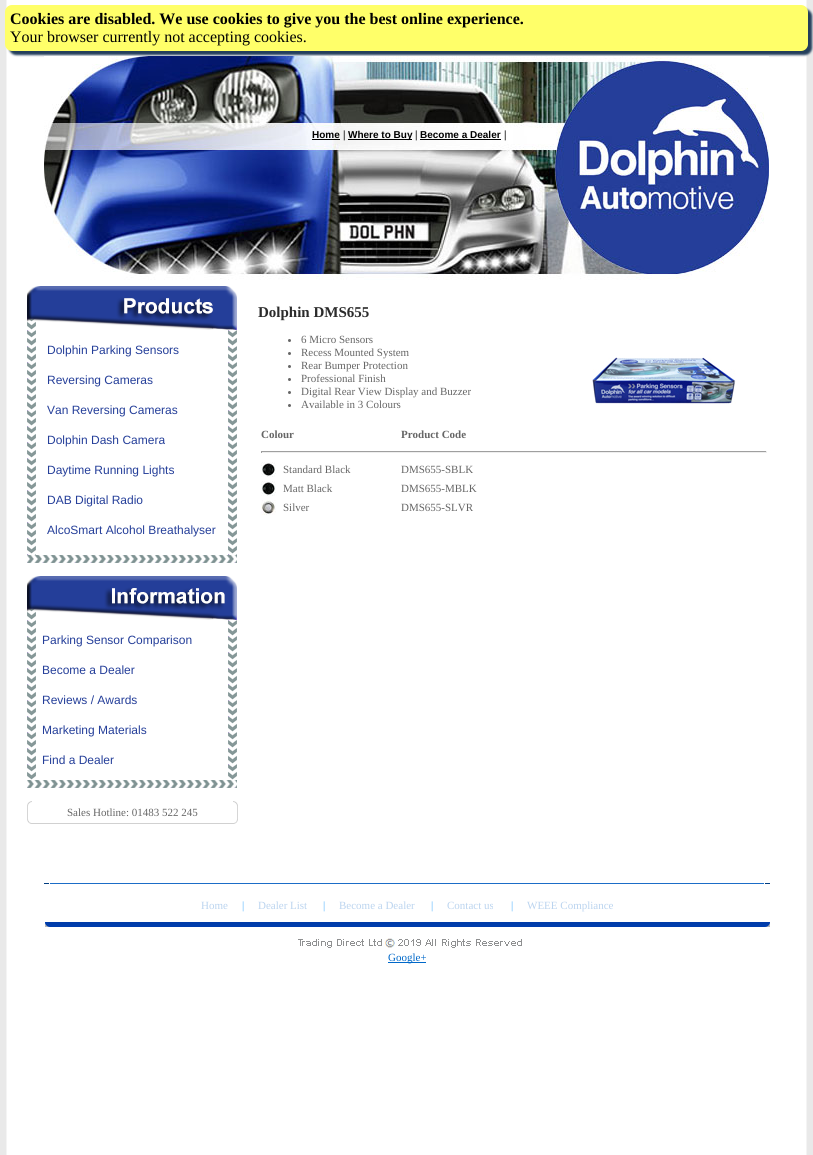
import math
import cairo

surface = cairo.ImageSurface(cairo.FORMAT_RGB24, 813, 1155)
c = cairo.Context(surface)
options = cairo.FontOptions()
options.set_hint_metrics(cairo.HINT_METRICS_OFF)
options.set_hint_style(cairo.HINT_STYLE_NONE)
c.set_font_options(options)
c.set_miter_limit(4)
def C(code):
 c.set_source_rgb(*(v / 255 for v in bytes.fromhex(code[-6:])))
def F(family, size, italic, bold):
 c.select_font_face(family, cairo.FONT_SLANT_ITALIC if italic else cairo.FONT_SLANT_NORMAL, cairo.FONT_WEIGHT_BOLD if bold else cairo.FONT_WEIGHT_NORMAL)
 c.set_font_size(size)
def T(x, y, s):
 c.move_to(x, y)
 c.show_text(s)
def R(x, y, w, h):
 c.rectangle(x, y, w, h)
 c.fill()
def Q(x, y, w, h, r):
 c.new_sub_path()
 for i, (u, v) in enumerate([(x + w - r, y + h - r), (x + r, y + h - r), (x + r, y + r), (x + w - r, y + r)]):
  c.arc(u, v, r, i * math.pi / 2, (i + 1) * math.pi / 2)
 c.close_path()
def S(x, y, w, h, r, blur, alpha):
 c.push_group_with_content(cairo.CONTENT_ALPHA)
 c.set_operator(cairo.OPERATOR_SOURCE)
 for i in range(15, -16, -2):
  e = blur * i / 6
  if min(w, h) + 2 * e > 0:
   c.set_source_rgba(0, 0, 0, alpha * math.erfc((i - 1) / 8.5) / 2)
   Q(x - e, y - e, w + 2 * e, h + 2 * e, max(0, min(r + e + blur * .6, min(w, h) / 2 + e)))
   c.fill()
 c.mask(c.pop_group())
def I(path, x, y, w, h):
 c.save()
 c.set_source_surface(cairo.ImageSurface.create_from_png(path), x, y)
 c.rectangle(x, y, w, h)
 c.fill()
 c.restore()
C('ffffff')
c.paint()
I('1.png',0,0,813,1155)
C('233e5b')
S(9,9,803,46,7,1,1)
C('ffff69')
Q(5,5,803,46,7)
c.fill()
F('Liberation Serif',16,0,1)
C('000000')
T(10,24,'Cookies are disabled. We use cookies to give you the best online experience.')
F('Liberation Serif',16,0,0)
T(10,42,'Your browser currently not accepting cookies.')
I('2.png',44,56,725,224)
F('Liberation Sans',10,0,1)
T(312,138,'Home')
R(312,139,28,1)
F('Liberation Serif',11,0,1)
T(343,138,'|')
R(348,139,64,1)
F('Liberation Sans',10,0,1)
T(348,138,'Where to Buy')
F('Liberation Serif',11,0,1)
T(415,138,'|')
F('Liberation Sans',10,0,1)
T(420,138,'Become a Dealer')
R(420,139,81,1)
F('Liberation Serif',11,0,1)
T(504,138,'|')
I('3.png',27,286,210,44)
I('4.png',27,330,210,225)
F('Liberation Sans',12,0,0)
C('243e99')
T(47,354,'Dolphin Parking Sensors')
T(47,384,'Reversing Cameras')
T(47,414,'Van Reversing Cameras')
T(47,444,'Dolphin Dash Camera')
T(47,474,'Daytime Running Lights')
T(47,504,'DAB Digital Radio')
T(47,534,'AlcoSmart Alcohol Breathalyser')
I('5.png',27,555,210,8)
I('6.png',27,576,210,44)
I('7.png',27,620,210,160)
T(42,644,'Parking Sensor Comparison')
T(42,674,'Become a Dealer')
T(42,704,'Reviews / Awards')
T(42,734,'Marketing Materials')
T(42,764,'Find a Dealer')
I('5.png',27,780,210,8)
I('8.png',27,801,5,5)
I('9.png',233,801,5,5)
C('d6d6d6')
R(27,806,1,13)
F('Liberation Serif',11,0,0)
C('666666')
T(67,816,'Sales Hotline: 01483 522 245')
C('d6d6d6')
R(237,806,1,13)
I('10.png',27,819,5,5)
C('d1d1d1')
R(32,823,201,1)
I('11.png',233,819,5,5)
F('Liberation Serif',15,0,1)
C('2b2b2b')
T(258,317,'Dolphin DMS655')
C('666666')
c.new_path()
c.arc(289.5,340.5,1.5,0,2 * math.pi)
c.fill()
F('Liberation Serif',11,0,0)
T(301,343,'6 Micro Sensors')
c.new_path()
c.arc(289.5,353.5,1.5,0,2 * math.pi)
c.fill()
T(301,356,'Recess Mounted System')
c.new_path()
c.arc(289.5,366.5,1.5,0,2 * math.pi)
c.fill()
T(301,369,'Rear Bumper Protection')
c.new_path()
c.arc(289.5,379.5,1.5,0,2 * math.pi)
c.fill()
T(301,382,'Professional Finish')
c.new_path()
c.arc(289.5,392.5,1.5,0,2 * math.pi)
c.fill()
T(301,395,'Digital Rear View Display and Buzzer')
c.new_path()
c.arc(289.5,405.5,1.5,0,2 * math.pi)
c.fill()
T(301,408,'Available in 3 Colours')
I('12.png',592,357,144,48)
F('Liberation Serif',11,0,1)
T(261,438,'Colour')
T(401,438,'Product Code')
C('9f9f9f')
R(261,451,506,1)
C('eeeeee')
R(766,451,1,2)
R(261,452,506,1)
C('9f9f9f')
R(261,451,1,2)
I('13.png',261,462,15,15)
F('Liberation Serif',11,0,0)
C('666666')
T(283,473,'Standard Black')
T(401,473,'DMS655-SBLK')
I('13.png',261,481,15,15)
T(283,492,'Matt Black')
T(401,492,'DMS655-MBLK')
I('14.png',261,500,15,15)
T(283,511,'Silver')
T(401,511,'DMS655-SLVR')
I('15.png',44,883,726,1)
C('bbd4ef')
T(201,909,'Home')
C('51b3ff')
T(242,909,'|')
C('bbd4ef')
T(258,909,'Dealer List')
C('51b3ff')
T(323,909,'|')
C('bbd4ef')
T(339,909,'Become a Dealer')
C('51b3ff')
T(431,909,'|')
C('bbd4ef')
T(447,909,'Contact us')
C('51b3ff')
T(511,909,'|')
C('bbd4ef')
T(527,909,'WEEE Compliance')
I('16.png',45,922,725,5)
I('17.png',298,938,224,10)
C('0068c9')
R(388,962,38,1)
T(388,961,'Google+')
surface.write_to_png('o.png')
